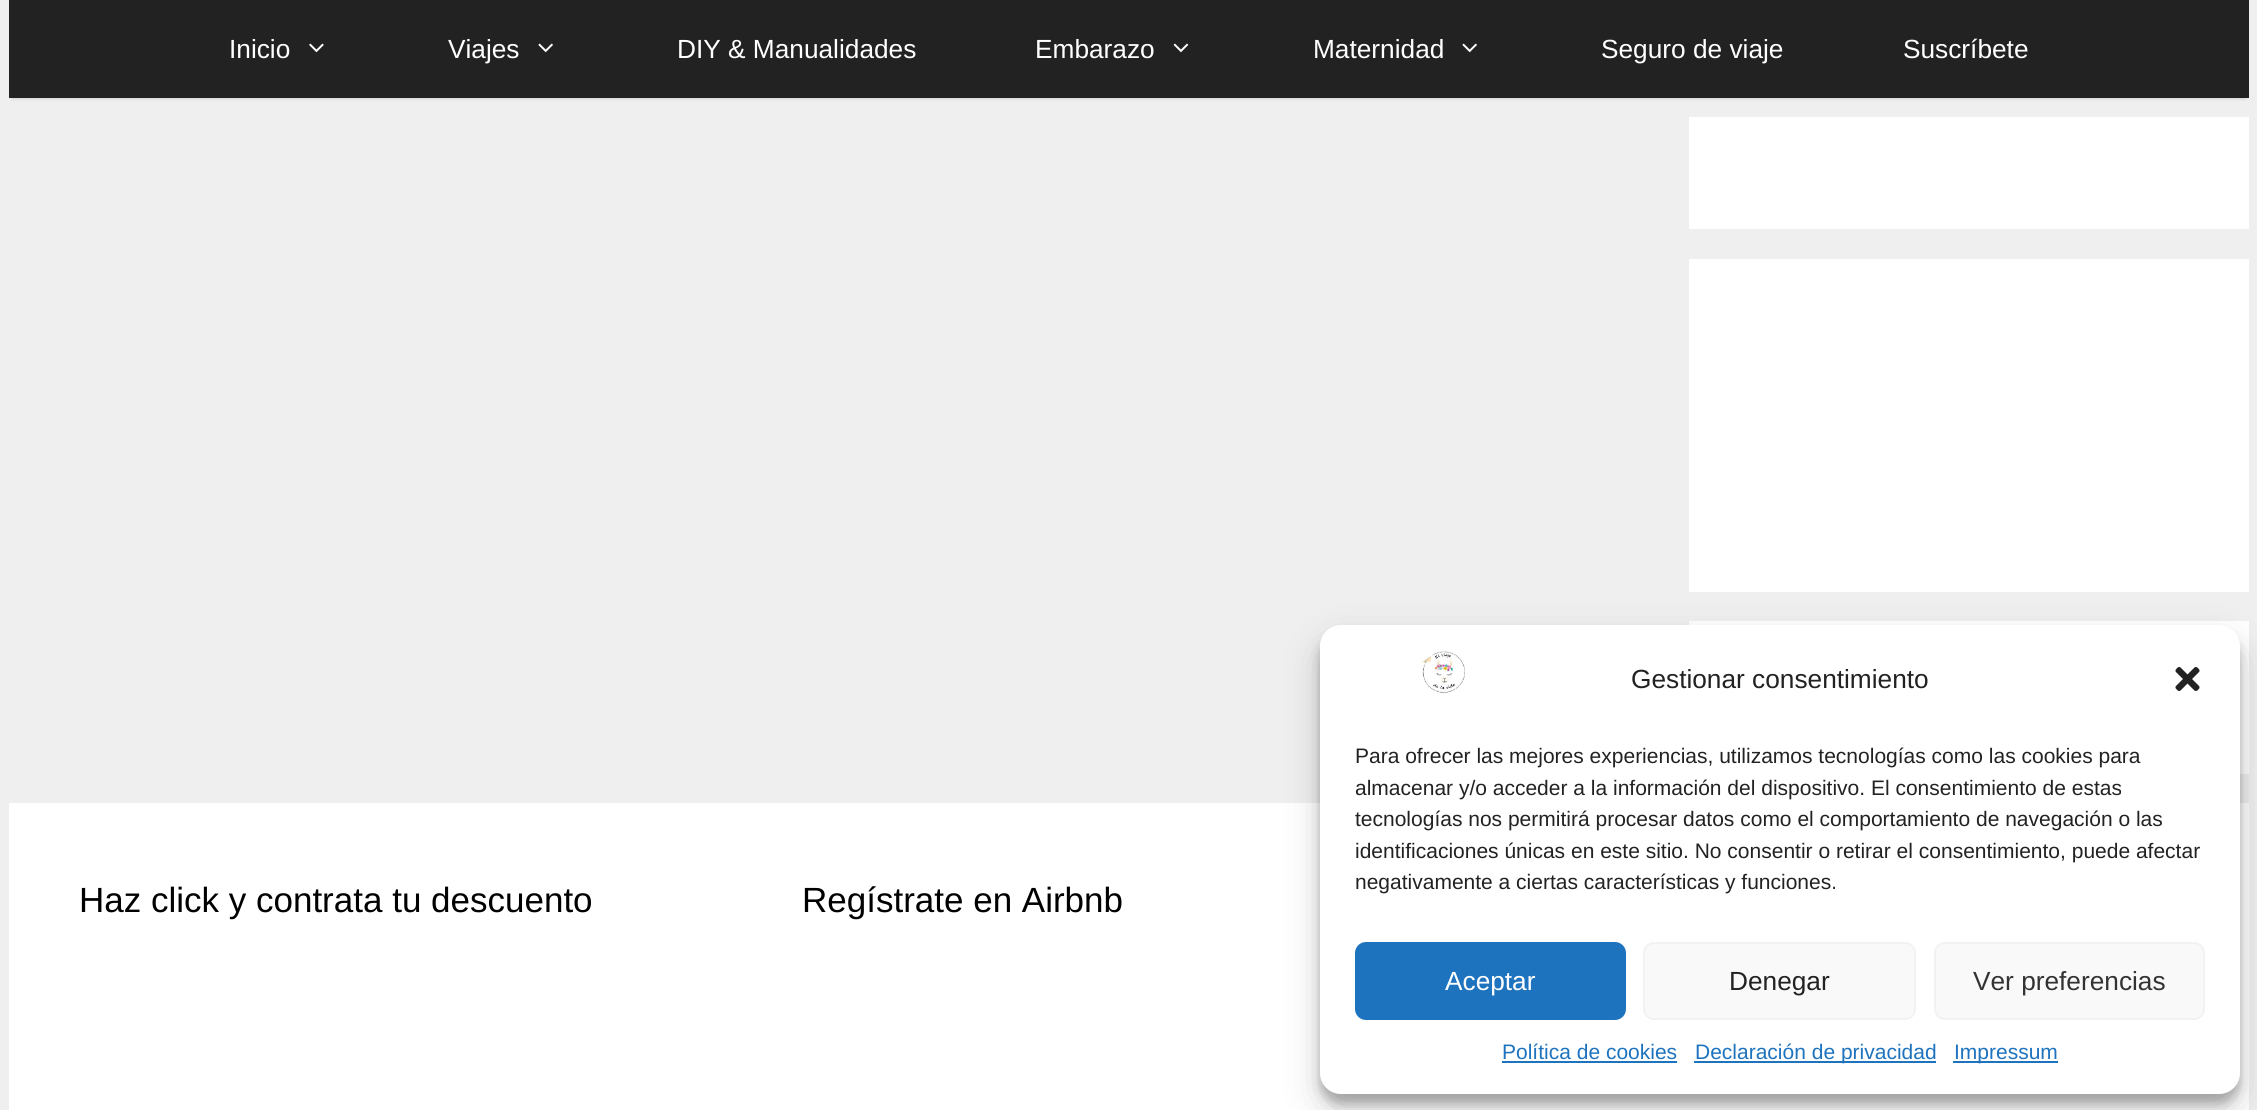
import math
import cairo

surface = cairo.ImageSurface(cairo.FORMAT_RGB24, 2257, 1110)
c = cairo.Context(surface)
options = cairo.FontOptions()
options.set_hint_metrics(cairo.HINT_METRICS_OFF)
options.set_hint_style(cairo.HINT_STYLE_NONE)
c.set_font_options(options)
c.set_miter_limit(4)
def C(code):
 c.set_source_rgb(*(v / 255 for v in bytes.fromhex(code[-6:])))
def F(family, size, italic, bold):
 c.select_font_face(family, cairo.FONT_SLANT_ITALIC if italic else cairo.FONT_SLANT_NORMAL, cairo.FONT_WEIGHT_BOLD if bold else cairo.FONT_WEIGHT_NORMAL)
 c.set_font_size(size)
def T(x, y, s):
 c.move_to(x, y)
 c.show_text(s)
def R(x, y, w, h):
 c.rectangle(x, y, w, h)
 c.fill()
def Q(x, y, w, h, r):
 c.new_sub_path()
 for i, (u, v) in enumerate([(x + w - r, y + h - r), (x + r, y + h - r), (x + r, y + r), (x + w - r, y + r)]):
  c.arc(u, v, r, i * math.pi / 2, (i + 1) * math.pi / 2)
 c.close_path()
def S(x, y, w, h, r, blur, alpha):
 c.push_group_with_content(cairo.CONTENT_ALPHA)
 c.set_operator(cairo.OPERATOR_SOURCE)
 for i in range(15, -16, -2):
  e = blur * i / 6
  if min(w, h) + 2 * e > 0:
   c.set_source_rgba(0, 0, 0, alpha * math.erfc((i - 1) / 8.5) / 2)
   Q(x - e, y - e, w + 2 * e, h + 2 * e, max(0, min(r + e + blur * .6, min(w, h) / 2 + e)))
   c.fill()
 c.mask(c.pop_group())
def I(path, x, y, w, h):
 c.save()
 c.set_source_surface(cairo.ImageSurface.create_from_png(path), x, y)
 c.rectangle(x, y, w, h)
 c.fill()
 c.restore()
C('efefef')
c.paint()
C('000000')
S(12,7,2233,91,0,2,.2)
C('222222')
R(9,0,2240,98)
F('Liberation Sans',26.25,0,0)
C('ffffff')
T(229,58,'Inicio')
I('1.png',309,43,15,10)
T(448,58,'Viajes')
I('2.png',538,43,15,10)
T(677,58,'DIY & Manualidades')
T(1035,58,'Embarazo')
I('3.png',1173,43,16,10)
T(1313,58,'Maternidad')
I('2.png',1462,43,15,10)
T(1601,58,'Seguro de viaje')
T(1903,58,'Suscríbete')
R(1689,117,560,112)
R(1689,259,560,333)
R(1689,621,560,153)
R(9,803,2240,307)
F('Liberation Sans',35,0,0)
C('000000')
T(79,912,'Haz click y contrata tu descuento')
T(802,912,'Regístrate en Airbnb')
C('000000')
S(1320,635,920,469,21,5,.23)
S(1320,642,920,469,21,17.5,.19)
C('ffffff')
Q(1320,625,920,469,21)
c.fill()
I('4.png',1421,651,44,42)
F('Liberation Sans',26.25,0,0)
C('222222')
T(1631,688,'Gestionar consentimiento')
I('5.png',2175,667,25,24)
F('Liberation Sans',21,0,0)
T(1355,763,'Para ofrecer las mejores experiencias, utilizamos tecnologías como las cookies para')
T(1355,795,'almacenar y/o acceder a la información del dispositivo. El consentimiento de estas')
T(1355,826,'tecnologías nos permitirá procesar datos como el comportamiento de navegación o las')
T(1355,858,'identificaciones únicas en este sitio. No consentir o retirar el consentimiento, puede afectar')
T(1355,889,'negativamente a ciertas características y funciones.')
C('1e73be')
Q(1356,943,269,76,10)
c.fill_preserve()
c.stroke()
F('Liberation Sans',26.25,0,0)
C('ffffff')
T(1445,990,'Aceptar')
C('f9f9f9')
Q(1644,943,271,76,10)
c.fill_preserve()
C('f2f2f2')
c.stroke()
C('222222')
T(1729,990,'Denegar')
C('f9f9f9')
Q(1935,943,269,76,10)
c.fill_preserve()
C('f2f2f2')
c.stroke()
C('333333')
T(1973,990,'Ver preferencias')
F('Liberation Sans',21,0,0)
C('1e73be')
T(1502,1059,'Política de cookies')
R(1502,1061,175,2)
R(1694,1061,242,2)
T(1695,1059,'Declaración de privacidad')
R(1953,1061,105,2)
T(1954,1059,'Impressum')
surface.write_to_png('o.png')
